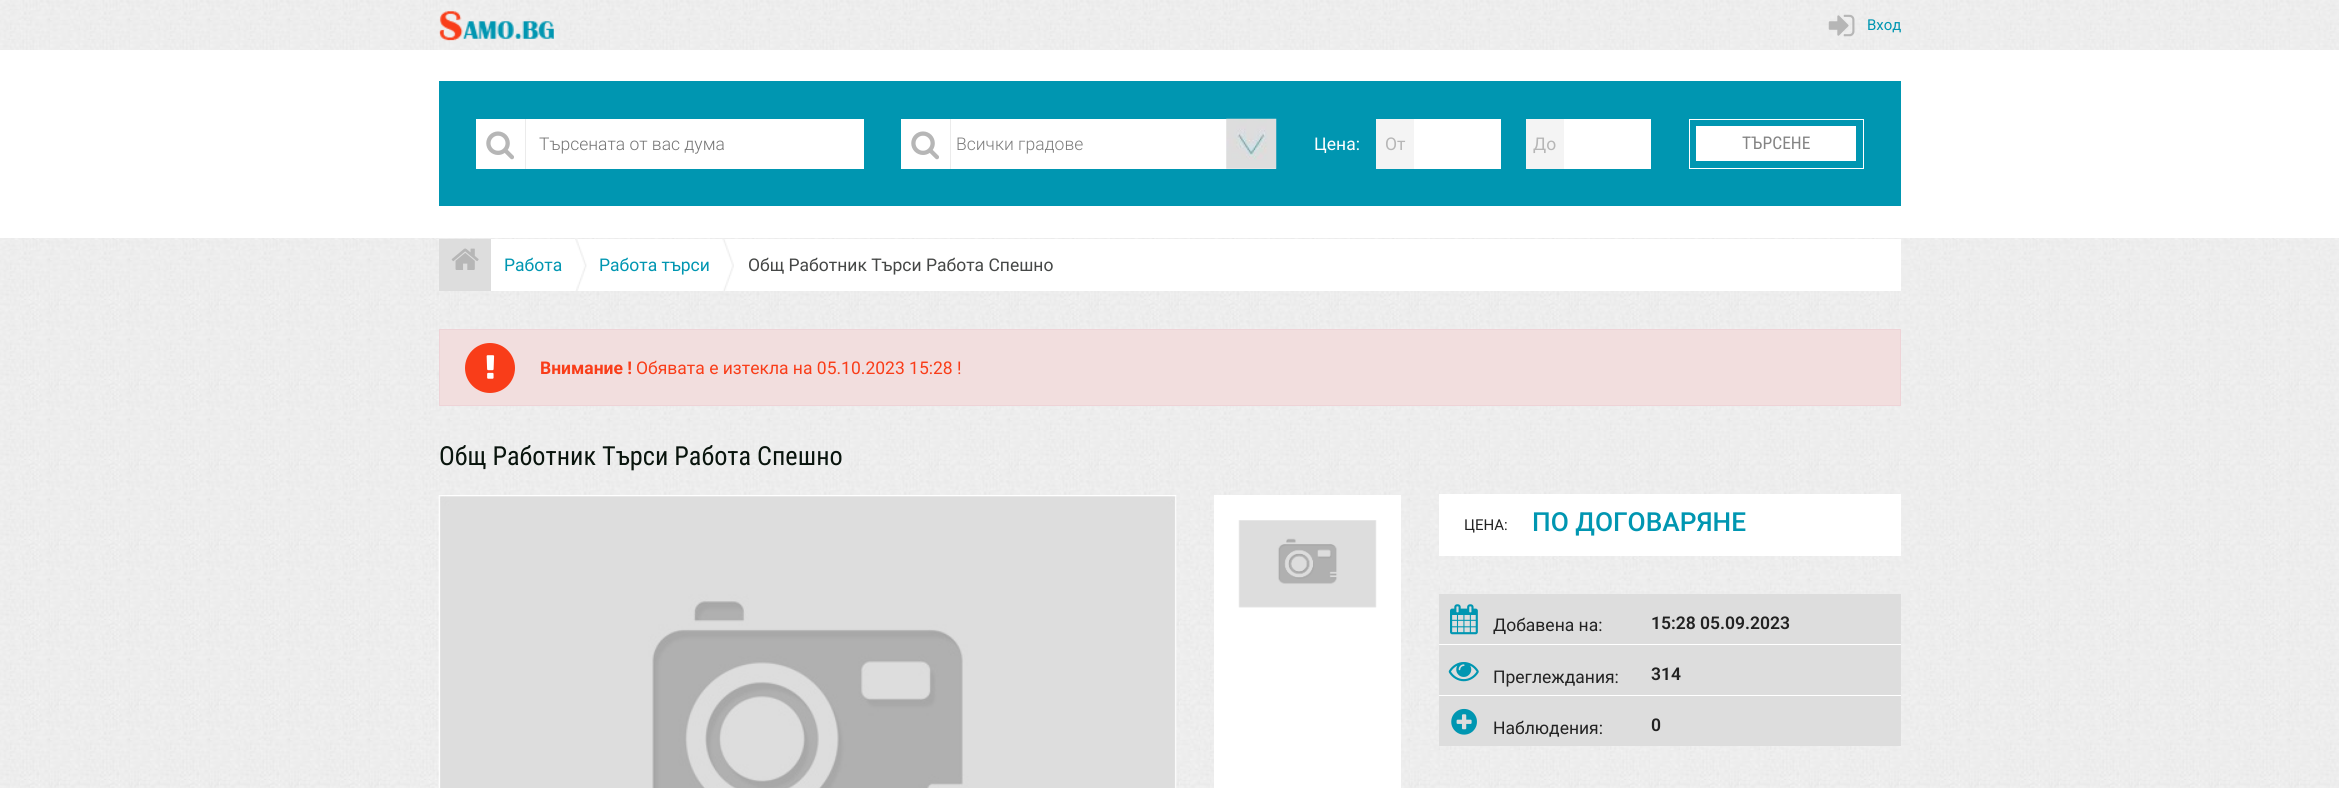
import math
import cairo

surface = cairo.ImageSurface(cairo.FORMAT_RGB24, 2339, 788)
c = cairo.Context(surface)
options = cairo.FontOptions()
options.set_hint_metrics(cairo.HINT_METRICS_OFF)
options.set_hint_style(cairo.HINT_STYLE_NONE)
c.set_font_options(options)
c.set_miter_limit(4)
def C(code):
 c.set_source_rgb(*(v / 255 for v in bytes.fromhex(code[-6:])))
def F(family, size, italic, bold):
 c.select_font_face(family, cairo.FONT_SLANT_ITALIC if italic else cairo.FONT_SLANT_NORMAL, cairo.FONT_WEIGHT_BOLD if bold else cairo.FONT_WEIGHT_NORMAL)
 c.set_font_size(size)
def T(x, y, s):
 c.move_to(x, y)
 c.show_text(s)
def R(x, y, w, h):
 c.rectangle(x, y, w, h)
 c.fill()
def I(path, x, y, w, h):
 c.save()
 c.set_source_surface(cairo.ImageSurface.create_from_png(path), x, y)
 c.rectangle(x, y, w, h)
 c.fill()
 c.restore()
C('ffffff')
c.paint()
I('1.png',0,0,2339,788)
I('2.png',439,11,115,30)
I('3.png',1828,14,27,23)
F('Roboto',15,0,0)
C('0096b1')
T(1867,30,'Вход')
C('ffffff')
R(0,50,2339,188)
C('0096b1')
R(439,81,1462,125)
C('ffffff')
R(476,119,49,50)
C('ebebeb')
R(525,119,1,50)
I('4.png',486,131,28,29)
C('ffffff')
R(526,119,338,50)
F('Roboto Light',17.5,0,0)
C('757575')
T(539,150,'Търсената от вас дума')
C('ffffff')
R(901,119,49,50)
C('ebebeb')
R(950,119,1,50)
I('4.png',911,131,28,29)
C('ffffff')
R(951,119,325,50)
I('5.png',1226,118,51,51)
C('7e7e7e')
T(956,150,'Всички градове')
F('Roboto',17.5,0,0)
C('ffffff')
T(1314,150,'Цена:')
C('f4f4f4')
R(1376,119,38,50)
C('b6b6b6')
T(1385,150,'От')
C('ffffff')
R(1414,119,87,50)
C('f4f4f4')
R(1526,119,38,50)
C('b6b6b6')
T(1533,150,'До')
C('ffffff')
R(1564,119,87,50)
c.rectangle(1689.5,119.5,174,49)
c.set_line_width(1)
c.stroke()
R(1696,126,160,35)
F('Roboto Condensed',17.5,0,0)
C('848484')
T(1742,149,'ТЪРСЕНЕ')
C('ffffff')
R(491,239,1410,52)
C('dddddd')
R(439,239,52,52)
I('6.png',451,248,28,22)
I('7.png',575,239,12,52)
F('Roboto',17.5,0,0)
C('0096b1')
T(504,271,'Работа')
I('8.png',722,239,12,52)
T(599,271,'Работа търси')
C('454746')
T(748,271,'Общ Работник Търси Работа Спешно')
C('f2dede')
c.rectangle(439.5,329.5,1461,76)
c.fill_preserve()
C('eed3d7')
c.stroke()
C('f93d19')
c.arc(490,368,25,0,2 * math.pi)
c.fill()
I('9.png',486,355,9,24)
F('Roboto',17.5,0,1)
T(540,374,'Внимание !')
F('Roboto',17.5,0,0)
T(636,374,'Обявата е изтекла на 05.10.2023 15:28 !')
F('Roboto Condensed',26.25,0,0)
C('09140d')
T(439,465,'Общ Работник Търси Работа Спешно')
I('10.png',438,495,739,293)
C('ffffff')
R(1214,495,187,293)
I('11.png',1238,520,139,88)
R(1439,494,462,62)
F('Roboto',15,0,0)
C('222222')
T(1464,530,'ЦЕНА:')
F('Roboto Medium',26.25,0,0)
C('0096b1')
T(1532,531,'ПО ДОГОВАРЯНЕ')
C('dddddd')
R(1439,594,462,50)
C('ffffff')
R(1439,644,462,1)
I('12.png',1450,604,28,31)
F('Roboto',17.5,0,0)
C('222222')
T(1493,631,'Добавена на:')
F('Roboto SemiBold',17.5,0,0)
T(1651,629,'15:28 05.09.2023')
C('dddddd')
R(1439,645,462,50)
C('ffffff')
R(1439,695,462,1)
I('13.png',1448,662,31,20)
F('Roboto',17.5,0,0)
C('222222')
T(1493,683,'Преглеждания:')
F('Roboto SemiBold',17.5,0,0)
T(1651,680,'314')
C('dddddd')
R(1439,696,462,50)
I('14.png',1451,708,26,27)
F('Roboto',17.5,0,0)
C('222222')
T(1493,734,'Наблюдения:')
F('Roboto SemiBold',17.5,0,0)
T(1651,731,'0')
surface.write_to_png('o.png')
